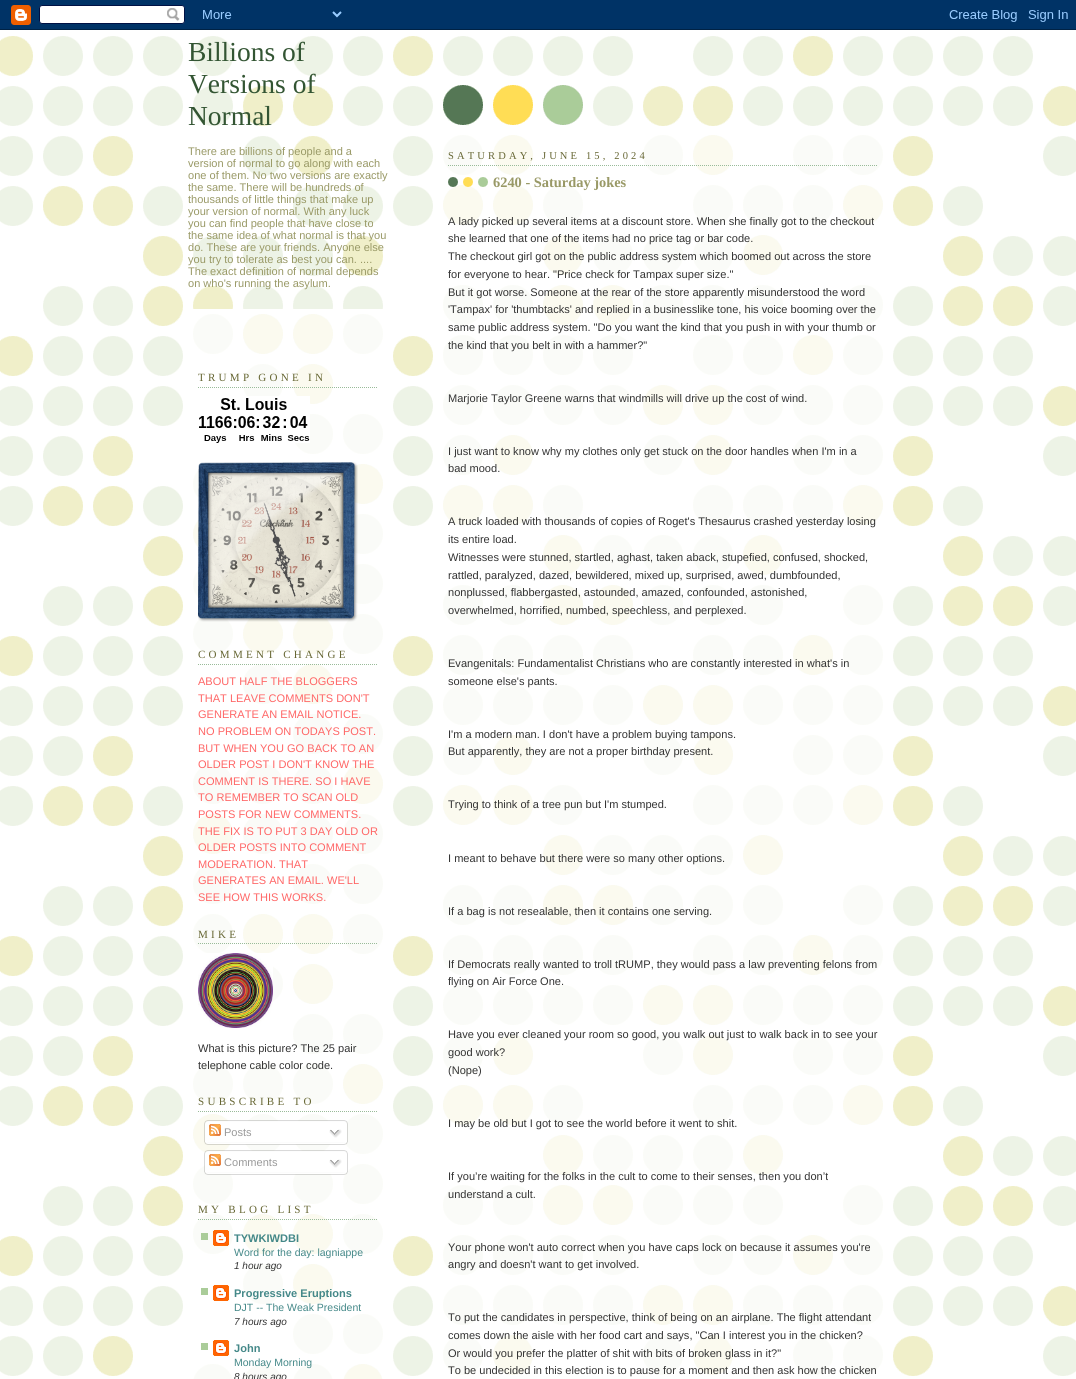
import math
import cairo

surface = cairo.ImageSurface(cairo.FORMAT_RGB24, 1076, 1379)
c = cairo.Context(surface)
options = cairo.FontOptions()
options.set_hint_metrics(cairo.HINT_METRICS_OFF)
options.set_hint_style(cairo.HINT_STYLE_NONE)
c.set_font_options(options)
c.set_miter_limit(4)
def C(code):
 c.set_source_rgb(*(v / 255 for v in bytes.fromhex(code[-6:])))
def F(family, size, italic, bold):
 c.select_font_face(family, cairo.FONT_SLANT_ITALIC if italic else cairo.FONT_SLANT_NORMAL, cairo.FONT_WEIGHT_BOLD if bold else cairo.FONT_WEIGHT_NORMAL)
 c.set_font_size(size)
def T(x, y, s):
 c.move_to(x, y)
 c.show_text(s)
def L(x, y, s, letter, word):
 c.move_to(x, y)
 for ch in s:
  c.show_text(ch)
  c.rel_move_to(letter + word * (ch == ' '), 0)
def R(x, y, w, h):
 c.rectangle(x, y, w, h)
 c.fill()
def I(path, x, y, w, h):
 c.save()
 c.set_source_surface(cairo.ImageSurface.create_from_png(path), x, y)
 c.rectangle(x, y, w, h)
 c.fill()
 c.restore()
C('ffffff')
c.paint()
I('1.png',0,30,1076,1346)
I('2.png',0,0,1076,30)
I('3.png',442,85,141,41)
F('Liberation Serif',27.5,0,0)
C('335533')
T(188,61,'Billions of')
T(188,93,'Versions of')
T(188,125,'Normal')
F('Liberation Sans',11.05,0,0)
C('999966')
T(188,155,'There are billions of people and a')
T(188,167,'version of normal to go along with each')
T(188,179,'one of them. No two versions are exactly')
T(188,191,'the same. There will be hundreds of')
T(188,203,'thousands of little things that make up')
T(188,215,'your version of normal. With any luck')
T(188,227,'you can find people that have close to')
T(188,239,'the same idea of what normal is that you')
T(188,251,'do. These are your friends. Anyone else')
T(188,263,'you try to tolerate as best you can. ....')
T(188,275,'The exact definition of normal depends')
T(188,287,'on who\'s running the asylum.')
I('4.png',193,309,190,1070)
c.new_path()
c.move_to(198,387.5)
c.line_to(378,387.5)
C('99bb99')
c.set_line_width(1)
c.set_dash([1,1])
c.stroke()
F('Liberation Serif',11.05,0,0)
C('666633')
L(198,381,'TRUMP GONE IN',3.25,0)
I('5.png',199,396,111,47)
I('6.png',198,462,160,160)
c.new_path()
c.move_to(198,664.5)
c.line_to(378,664.5)
C('99bb99')
c.stroke()
C('666633')
L(198,658,'COMMENT CHANGE',3.25,0)
F('Liberation Sans',11.05,0,0)
C('ff6666')
T(198,685,'ABOUT HALF THE BLOGGERS')
T(198,702,'THAT LEAVE COMMENTS DON\'T')
T(198,718,'GENERATE AN EMAIL NOTICE.')
T(198,735,'NO PROBLEM ON TODAYS POST.')
T(198,752,'BUT WHEN YOU GO BACK TO AN')
T(198,768,'OLDER POST I DON\'T KNOW THE')
T(198,785,'COMMENT IS THERE. SO I HAVE')
T(198,801,'TO REMEMBER TO SCAN OLD')
T(198,818,'POSTS FOR NEW COMMENTS.')
T(198,835,'THE FIX IS TO PUT 3 DAY OLD OR')
T(198,851,'OLDER POSTS INTO COMMENT')
T(198,868,'MODERATION. THAT')
T(198,884,'GENERATES AN EMAIL. WE\'LL')
T(198,901,'SEE HOW THIS WORKS.')
c.new_path()
c.move_to(198,943.5)
c.line_to(378,943.5)
C('99bb99')
c.stroke()
F('Liberation Serif',11.05,0,0)
C('666633')
L(198,938,'MIKE',3.25,0)
I('7.png',198,953,75,75)
F('Liberation Sans',11.05,0,0)
C('333333')
T(198,1052,'What is this picture? The 25 pair')
T(198,1069,'telephone cable color code.')
c.new_path()
c.move_to(198,1111.5)
c.line_to(378,1111.5)
C('99bb99')
c.stroke()
F('Liberation Serif',11.05,0,0)
C('666633')
L(198,1105,'SUBSCRIBE TO',3.25,0)
I('8.png',204,1120,144,22)
I('9.png',209,1124,12,12)
F('Liberation Sans',11.05,0,0)
C('999999')
T(224,1136,'Posts')
I('10.png',329,1129,13,9)
I('11.png',204,1142,144,3)
I('12.png',204,1150,144,22)
I('9.png',209,1154,12,12)
T(224,1166,'Comments')
I('10.png',329,1159,13,9)
I('13.png',204,1172,144,3)
c.new_path()
c.move_to(198,1219.5)
c.line_to(378,1219.5)
C('99bb99')
c.stroke()
F('Liberation Serif',11.05,0,0)
C('666633')
L(198,1213,'MY BLOG LIST',3.25,0)
C('aacc99')
R(201,1233,7,7)
I('14.png',213,1230,16,16)
F('Liberation Sans',11.05,0,1)
C('448888')
T(234,1242,'TYWKIWDBI')
F('Liberation Sans',10.5,0,0)
T(234,1256,'Word for the day: lagniappe')
F('Liberation Sans',10,1,0)
C('333333')
T(234,1269,'1 hour ago')
C('aacc99')
R(201,1288,7,7)
I('15.png',213,1285,16,16)
F('Liberation Sans',11.05,0,1)
C('448888')
T(234,1297,'Progressive Eruptions')
F('Liberation Sans',10.5,0,0)
T(234,1311,'DJT -- The Weak President')
F('Liberation Sans',10,1,0)
C('333333')
T(234,1325,'7 hours ago')
C('aacc99')
R(201,1343,7,7)
I('15.png',213,1340,16,16)
F('Liberation Sans',11.05,0,1)
C('448888')
T(234,1352,'John')
F('Liberation Sans',10.5,0,0)
T(234,1366,'Monday Morning')
F('Liberation Sans',10,1,0)
C('333333')
T(234,1380,'8 hours ago')
I('16.png',443,135,440,1241)
c.new_path()
c.move_to(448,165.5)
c.line_to(878,165.5)
C('99bb99')
c.stroke()
F('Liberation Serif',10.5,0,0)
C('666633')
L(448,159,'SATURDAY, JUNE 15, 2024',3.15,0)
I('17.png',448,177,40,10)
F('Liberation Serif',14.4,0,1)
C('999966')
T(493,187,'6240 - Saturday jokes')
F('Liberation Sans',11.05,0,0)
C('333333')
T(448,225,'A lady picked up several items at a discount store. When she finally got to the checkout')
T(448,242,'she learned that one of the items had no price tag or bar code.')
T(448,260,'The checkout girl got on the public address system which boomed out across the store')
T(448,278,'for everyone to hear. "Price check for Tampax super size."')
T(448,296,'But it got worse. Someone at the rear of the store apparently misunderstood the word')
T(448,313,'\'Tampax\' for \'thumbtacks\' and replied in a businesslike tone, his voice booming over the')
T(448,331,'same public address system. "Do you want the kind that you push in with your thumb or')
T(448,349,'the kind that you belt in with a hammer?"')
T(448,402,'Marjorie Taylor Greene warns that windmills will drive up the cost of wind.')
T(448,455,'I just want to know why my clothes only get stuck on the door handles when I\'m in a')
T(448,472,'bad mood.')
T(448,525,'A truck loaded with thousands of copies of Roget\'s Thesaurus crashed yesterday losing')
T(448,543,'its entire load.')
T(448,561,'Witnesses were stunned, startled, aghast, taken aback, stupefied, confused, shocked,')
T(448,579,'rattled, paralyzed, dazed, bewildered, mixed up, surprised, awed, dumbfounded,')
T(448,596,'nonplussed, flabbergasted, astounded, amazed, confounded, astonished,')
T(448,614,'overwhelmed, horrified, numbed, speechless, and perplexed.')
T(448,667,'Evangenitals: Fundamentalist Christians who are constantly interested in what\'s in')
T(448,685,'someone else\'s pants.')
T(448,738,'I\'m a modern man. I don\'t have a problem buying tampons.')
T(448,755,'But apparently, they are not a proper birthday present.')
T(448,808,'Trying to think of a tree pun but I\'m stumped.')
T(448,862,'I meant to behave but there were so many other options.')
T(448,915,'If a bag is not resealable, then it contains one serving.')
T(448,968,'If Democrats really wanted to troll tRUMP, they would pass a law preventing felons from')
T(448,985,'flying on Air Force One.')
T(448,1038,'Have you ever cleaned your room so good, you walk out just to walk back in to see your')
T(448,1056,'good work?')
T(448,1074,'(Nope)')
T(448,1127,'I may be old but I got to see the world before it went to shit.')
T(448,1180,'If you’re waiting for the folks in the cult to come to their senses, then you don’t')
T(448,1198,'understand a cult.')
T(448,1251,'Your phone won\'t auto correct when you have caps lock on because it assumes you\'re')
T(448,1268,'angry and doesn\'t want to get involved.')
T(448,1321,'To put the candidates in perspective, think of being on an airplane. The flight attendant')
T(448,1339,'comes down the aisle with her food cart and says, "Can I interest you in the chicken?')
T(448,1357,'Or would you prefer the platter of shit with bits of broken glass in it?"')
T(448,1374,'To be undecided in this election is to pause for a moment and then ask how the chicken')
surface.write_to_png('o.png')
